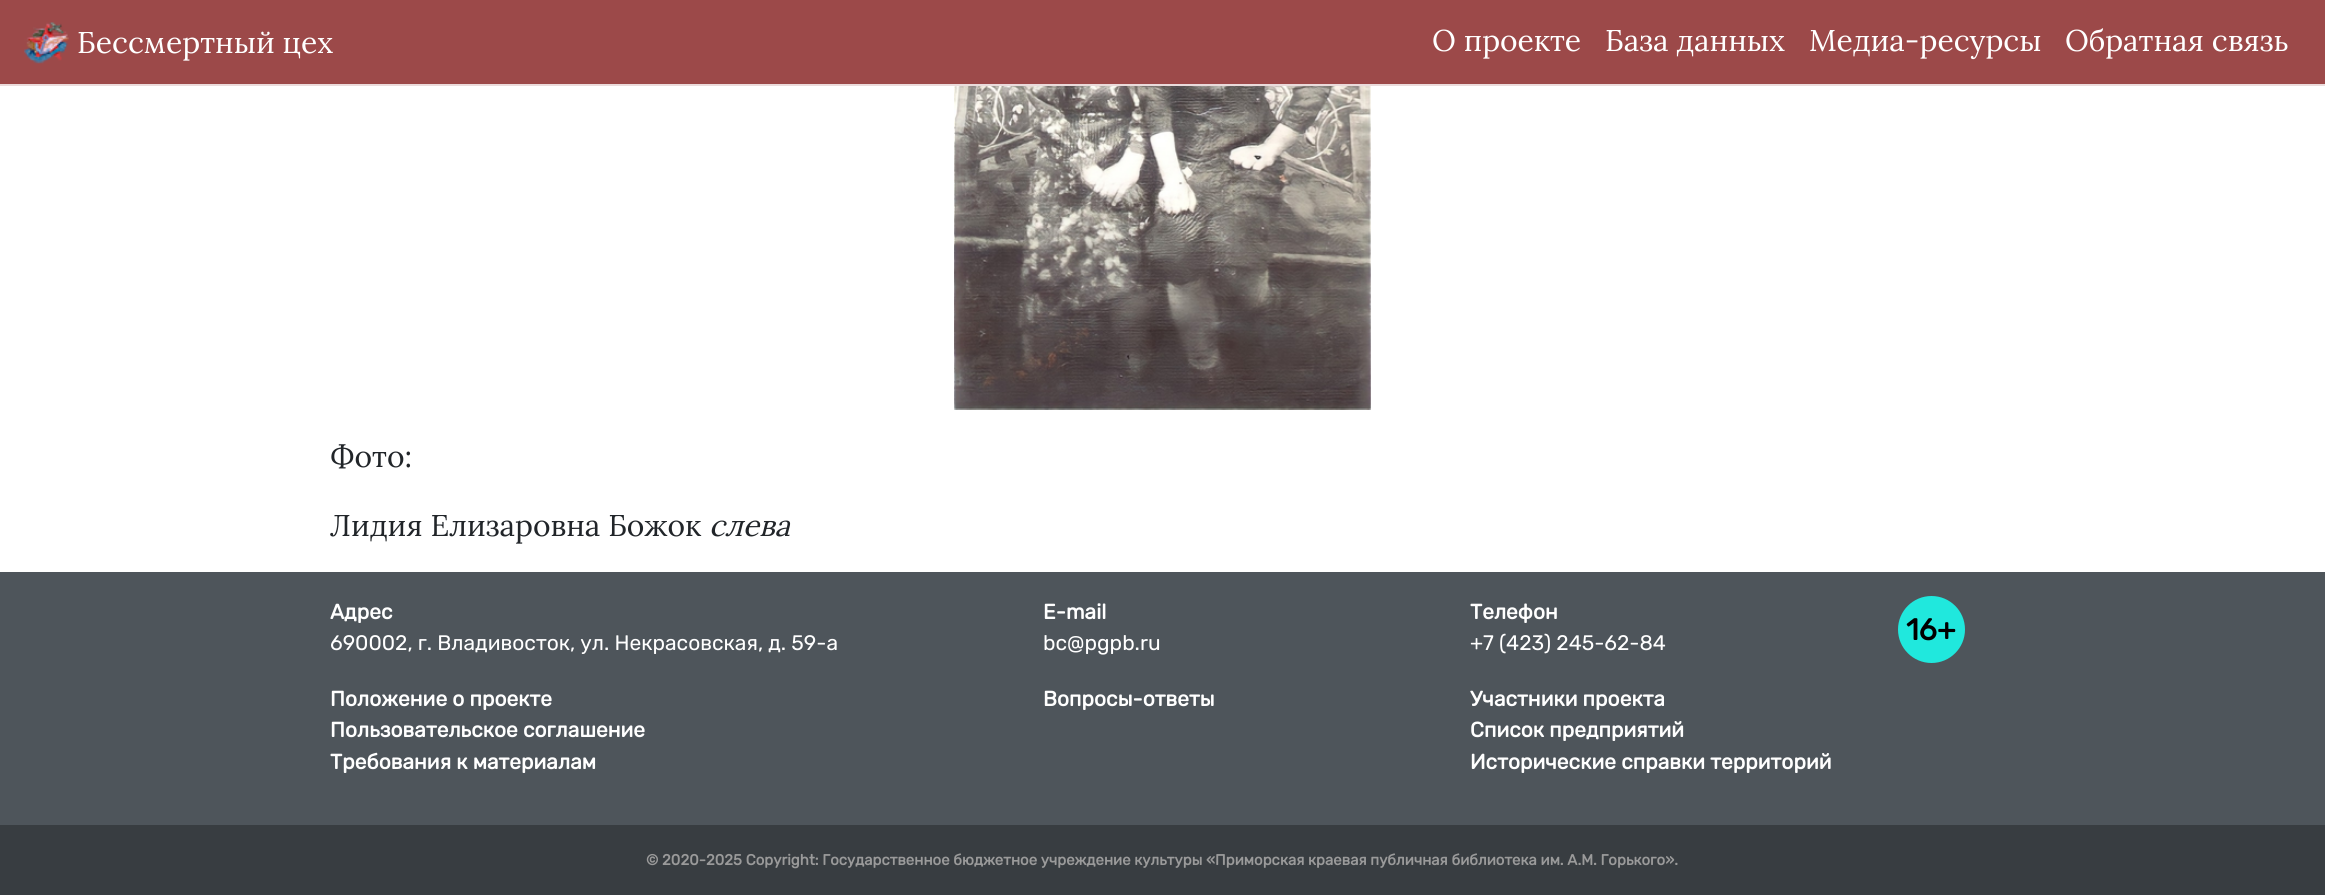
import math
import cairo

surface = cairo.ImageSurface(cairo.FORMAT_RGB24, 2325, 895)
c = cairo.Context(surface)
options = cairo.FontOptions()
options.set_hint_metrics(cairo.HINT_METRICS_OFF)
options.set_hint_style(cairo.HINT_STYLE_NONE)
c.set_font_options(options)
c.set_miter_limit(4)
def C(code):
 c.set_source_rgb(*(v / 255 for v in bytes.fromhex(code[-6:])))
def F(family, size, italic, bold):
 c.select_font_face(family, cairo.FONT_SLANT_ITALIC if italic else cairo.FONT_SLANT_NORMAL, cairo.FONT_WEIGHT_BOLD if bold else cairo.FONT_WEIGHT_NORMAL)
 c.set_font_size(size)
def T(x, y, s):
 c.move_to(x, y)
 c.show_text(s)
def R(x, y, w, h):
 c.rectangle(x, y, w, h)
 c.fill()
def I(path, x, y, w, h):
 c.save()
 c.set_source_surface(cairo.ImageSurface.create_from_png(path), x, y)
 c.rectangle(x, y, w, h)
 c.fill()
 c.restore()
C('ffffff')
c.paint()
C('9c4949')
R(0,0,2325,84)
C('ebdbdb')
R(0,84,2325,2)
I('1.png',24,22,45,42)
F('Lora',30,0,0)
C('ffffff')
T(77,53,'Бессмертный цех')
T(1432,51,'О проекте')
T(1605,51,'База данных')
T(1809,51,'Медиа-ресурсы')
T(2065,51,'Обратная связь')
I('2.png',954,86,417,324)
C('212529')
T(330,467,'Фото:')
T(330,536,'Лидия Елизаровна Божок')
F('Lora',30,1,0)
T(709,536,'слева')
C('4e555b')
R(0,572,2325,253)
F('Rubik',21,0,1)
C('ffffff')
T(330,619,'Адрес')
F('Rubik Light',21,0,0)
T(330,650,'690002, г. Владивосток, ул. Некрасовская, д. 59-а')
F('Rubik',21,0,1)
T(330,706,'Положение о проекте')
T(330,737,'Пользовательское соглашение')
T(330,769,'Требования к материалам')
T(1043,619,'E-mail')
F('Rubik Light',21,0,0)
T(1043,650,'bc@pgpb.ru')
F('Rubik',21,0,1)
T(1043,706,'Вопросы-ответы')
T(1470,619,'Телефон')
F('Rubik Light',21,0,0)
T(1470,650,'+7 (423) 245-62-84')
F('Rubik',21,0,1)
T(1470,706,'Участники проекта')
T(1470,737,'Список предприятий')
T(1470,769,'Исторические справки территорий')
C('20e8dd')
c.new_path()
c.arc(1931.5,629.5,33.5,0,2 * math.pi)
c.fill()
F('Rubik',30,0,1)
C('000000')
T(1906,640,'16+')
C('383d41')
R(0,825,2325,70)
F('Rubik',15,0,1)
C('9a9a9a')
T(646,865,'© 2020-2025 Copyright: Государственное бюджетное учреждение культуры «Приморская краевая публичная библиотека им. А.М. Горького».')
surface.write_to_png('o.png')
